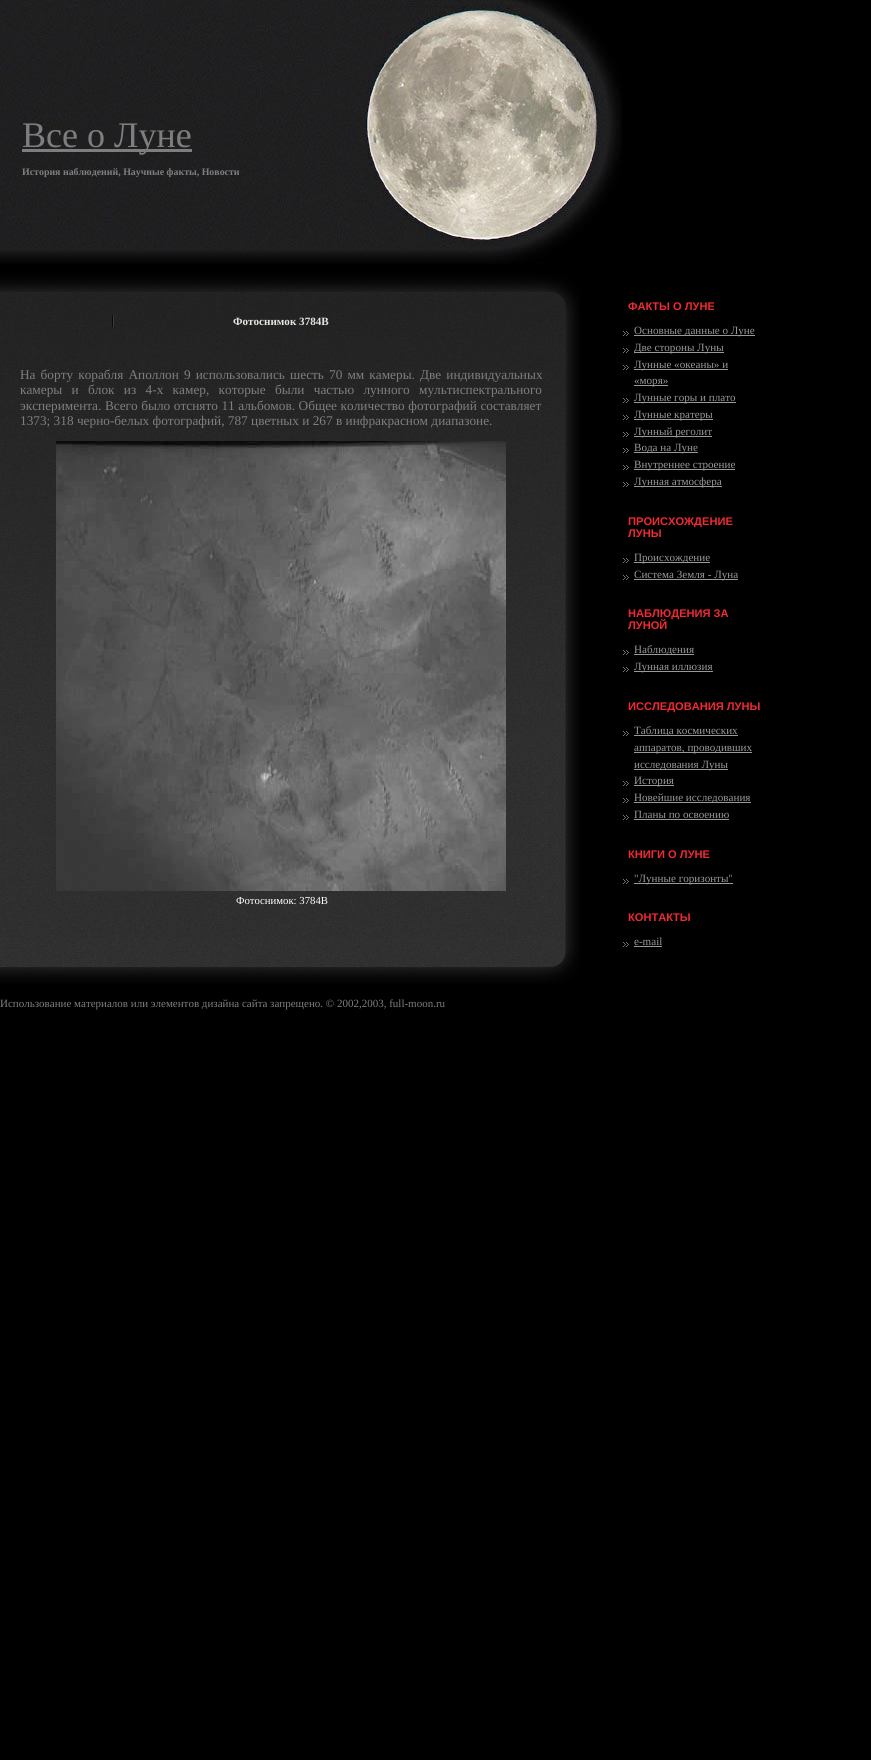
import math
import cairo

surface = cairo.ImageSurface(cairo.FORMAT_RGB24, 871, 1760)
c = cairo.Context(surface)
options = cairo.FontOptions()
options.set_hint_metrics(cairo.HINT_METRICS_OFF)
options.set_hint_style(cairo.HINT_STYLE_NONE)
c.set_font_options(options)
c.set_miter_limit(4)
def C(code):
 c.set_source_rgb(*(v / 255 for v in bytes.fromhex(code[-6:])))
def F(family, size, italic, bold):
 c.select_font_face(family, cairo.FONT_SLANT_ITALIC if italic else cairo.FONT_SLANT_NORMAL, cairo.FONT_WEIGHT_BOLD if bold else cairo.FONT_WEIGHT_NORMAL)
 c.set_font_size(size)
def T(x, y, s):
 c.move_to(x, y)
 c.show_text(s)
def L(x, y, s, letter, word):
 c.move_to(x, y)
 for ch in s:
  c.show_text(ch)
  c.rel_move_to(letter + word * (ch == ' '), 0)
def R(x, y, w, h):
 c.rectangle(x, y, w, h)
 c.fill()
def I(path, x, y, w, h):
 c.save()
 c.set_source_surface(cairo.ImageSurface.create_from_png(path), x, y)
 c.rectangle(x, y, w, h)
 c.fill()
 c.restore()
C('010000')
c.paint()
I('1.png',0,0,622,264)
C('7e7e7e')
R(22,149,170,3)
F('Liberation Serif',36,0,0)
T(22,147,'Все о Луне')
F('Liberation Serif',9.9,0,1)
T(22,175,'История наблюдений, Научные факты, Новости')
I('2.png',0,748,580,173)
I('3.png',0,270,580,478)
I('4.png',0,921,580,64)
I('5.png',112,315,2,12)
F('Liberation Serif',11.1,0,1)
C('e5e6de')
T(233,325,'Фотоснимок 3784B')
F('Liberation Serif',13.3,0,0)
C('7e7e7e')
L(20,379,'На борту корабля Аполлон 9 использовались шесть 70 мм камеры. Две индивидуальных',0,1.75)
L(20,394,'камеры и блок из 4-х камер, которые были частью лунного мультиспектрального',0,6)
L(20,410,'эксперимента. Всего было отснято 11 альбомов. Общее количество фотографий составляет',0,.25)
T(20,425,'1373; 318 черно-белых фотографий, 787 цветных и 267 в инфракрасном диапазоне.')
I('6.png',56,441,450,450)
F('Liberation Serif',10.75,0,0)
C('ffffff')
T(236,904,'Фотоснимок: 3784B')
F('Liberation Sans',11.1,0,1)
C('f02933')
T(628,310,'ФАКТЫ О ЛУНЕ')
I('7.png',623,331,6,5)
C('999999')
R(634,335,121,1)
F('Liberation Serif',11.1,0,0)
T(634,334,'Основные данные о Луне')
I('7.png',623,348,6,5)
R(634,352,90,1)
T(634,351,'Две стороны Луны')
I('7.png',623,365,6,5)
R(634,369,94,1)
T(634,368,'Лунные «океаны» и')
R(634,385,34,1)
T(634,384,'«моря»')
I('7.png',623,398,6,5)
R(634,402,102,1)
T(634,401,'Лунные горы и плато')
I('7.png',623,415,6,5)
R(634,419,79,1)
T(634,418,'Лунные кратеры')
I('7.png',623,432,6,5)
R(634,436,78,1)
T(634,435,'Лунный реголит')
I('7.png',623,448,6,5)
R(634,452,64,1)
T(634,451,'Вода на Луне')
I('7.png',623,465,6,5)
R(634,469,101,1)
T(634,468,'Внутреннее строение')
I('7.png',623,482,6,5)
R(634,486,88,1)
T(634,485,'Лунная атмосфера')
F('Liberation Sans',11.1,0,1)
C('f02933')
T(628,525,'ПРОИСХОЖДЕНИЕ')
T(628,537,'ЛУНЫ')
I('7.png',623,558,6,5)
C('999999')
R(634,562,76,1)
F('Liberation Serif',11.1,0,0)
T(634,561,'Происхождение')
I('7.png',623,575,6,5)
R(634,579,104,1)
T(634,578,'Система Земля - Луна')
F('Liberation Sans',11.1,0,1)
C('f02933')
T(628,617,'НАБЛЮДЕНИЯ ЗА')
T(628,629,'ЛУНОЙ')
I('7.png',623,650,6,5)
C('999999')
R(634,654,60,1)
F('Liberation Serif',11.1,0,0)
T(634,653,'Наблюдения')
I('7.png',623,667,6,5)
R(634,671,79,1)
T(634,670,'Лунная иллюзия')
F('Liberation Sans',11.1,0,1)
C('f02933')
T(628,710,'ИССЛЕДОВАНИЯ ЛУНЫ')
I('7.png',623,731,6,5)
C('999999')
R(634,735,104,1)
F('Liberation Serif',11.1,0,0)
T(634,734,'Таблица космических')
R(634,752,118,1)
T(634,751,'аппаратов, проводивших')
R(634,769,94,1)
T(634,768,'исследования Луны')
I('7.png',623,781,6,5)
R(634,785,40,1)
T(634,784,'История')
I('7.png',623,798,6,5)
R(634,802,117,1)
T(634,801,'Новейшие исследования')
I('7.png',623,815,6,5)
T(634,818,'Планы по освоению')
R(634,819,95,1)
F('Liberation Sans',11.1,0,1)
C('f02933')
T(628,858,'КНИГИ О ЛУНЕ')
I('7.png',623,879,6,5)
C('999999')
R(634,883,99,1)
F('Liberation Serif',11.1,0,0)
T(634,882,'"Лунные горизонты"')
F('Liberation Sans',11.1,0,1)
C('f02933')
T(628,921,'КОНТАКТЫ')
I('7.png',623,942,6,5)
F('Liberation Serif',11.1,0,0)
C('999999')
T(634,945,'e-mail')
R(634,946,28,1)
F('Liberation Serif',11,0,0)
C('7e7e7e')
T(0,1007,'Использование материалов или элементов дизайна сайта запрещено. © 2002,2003, full-moon.ru')
surface.write_to_png('o.png')
